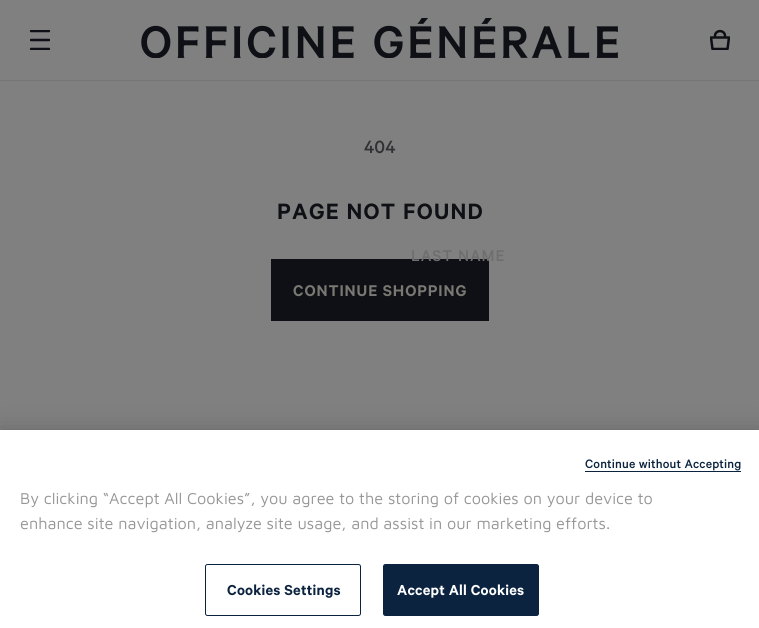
import math
import cairo

surface = cairo.ImageSurface(cairo.FORMAT_RGB24, 759, 628)
c = cairo.Context(surface)
options = cairo.FontOptions()
options.set_hint_metrics(cairo.HINT_METRICS_OFF)
options.set_hint_style(cairo.HINT_STYLE_NONE)
c.set_font_options(options)
c.set_miter_limit(4)
def C(code):
 c.set_source_rgb(*(v / 255 for v in bytes.fromhex(code[-6:])))
def F(family, size, italic, bold):
 c.select_font_face(family, cairo.FONT_SLANT_ITALIC if italic else cairo.FONT_SLANT_NORMAL, cairo.FONT_WEIGHT_BOLD if bold else cairo.FONT_WEIGHT_NORMAL)
 c.set_font_size(size)
def T(x, y, s):
 c.move_to(x, y)
 c.show_text(s)
def L(x, y, s, letter, word):
 c.move_to(x, y)
 for ch in s:
  c.show_text(ch)
  c.rel_move_to(letter + word * (ch == ' '), 0)
def R(x, y, w, h):
 c.rectangle(x, y, w, h)
 c.fill()
def Q(x, y, w, h, r):
 c.new_sub_path()
 for i, (u, v) in enumerate([(x + w - r, y + h - r), (x + r, y + h - r), (x + r, y + r), (x + w - r, y + r)]):
  c.arc(u, v, r, i * math.pi / 2, (i + 1) * math.pi / 2)
 c.close_path()
def S(x, y, w, h, r, blur, alpha):
 c.push_group_with_content(cairo.CONTENT_ALPHA)
 c.set_operator(cairo.OPERATOR_SOURCE)
 for i in range(15, -16, -2):
  e = blur * i / 6
  if min(w, h) + 2 * e > 0:
   c.set_source_rgba(0, 0, 0, alpha * math.erfc((i - 1) / 8.5) / 2)
   Q(x - e, y - e, w + 2 * e, h + 2 * e, max(0, min(r + e + blur * .6, min(w, h) / 2 + e)))
   c.fill()
 c.mask(c.pop_group())
def I(path, x, y, w, h):
 c.save()
 c.set_source_surface(cairo.ImageSurface.create_from_png(path), x, y)
 c.rectangle(x, y, w, h)
 c.fill()
 c.restore()
C('808080')
c.paint()
C('747575')
R(0,80,759,1)
c.save()
c.rectangle(30,30,20,20)
c.clip()
c.new_path()
c.move_to(49,31)
c.line_to(31,31)
c.move_to(49,49)
c.line_to(31,49)
c.move_to(49,40)
c.line_to(31,40)
C('0f1015')
c.set_line_width(2.5)
c.set_line_cap(cairo.LINE_CAP_ROUND)
c.set_line_join(cairo.LINE_JOIN_ROUND)
c.stroke()
c.restore()
I('1.png',141,18,477,40)
c.save()
c.rectangle(710,30,20,20)
c.clip()
c.new_path()
c.move_to(711,37.5)
c.line_to(729,37.5)
c.line_to(727.5,49)
c.line_to(712.5,49)
c.close_path()
C('0f1015')
c.set_line_width(2.5)
c.set_line_cap(cairo.LINE_CAP_ROUND)
c.set_line_join(cairo.LINE_JOIN_ROUND)
c.stroke()
c.restore()
c.new_path()
c.move_to(715,36)
c.curve_to(715,29.5,725,29.5,725,36)
C('0f1015')
c.set_line_width(2.5)
c.set_line_cap(cairo.LINE_CAP_ROUND)
c.set_line_join(cairo.LINE_JOIN_ROUND)
c.stroke()
F('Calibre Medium',20,0,0)
C('313135')
T(364,153,'404')
F('Calibre SemiBold',25,0,0)
C('0f1015')
L(277,219,'PAGE NOT FOUND',1.25,0)
R(271,259,218,62)
F('Calibre SemiBold',17.5,0,0)
C('797873')
L(293,296,'CONTINUE SHOPPING',.9,0)
F('Calibre Medium',17.5,0,0)
C('6e6e6f')
L(411,261,'LAST NAME',.9,0)
C('000000')
S(0,430,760,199,0,11,.2)
C('ffffff')
R(0,430,759,198)
F('Calibre Medium',13.75,0,0)
C('0c2340')
L(585,468,'Continue without Accepting',.15,0)
R(585,471,156,1)
F('Maven Pro',16.25,0,0)
C('969696')
T(20,504,'By clicking “Accept All Cookies”, you agree to the storing of cookies on your device to')
T(20,529,'enhance site navigation, analyze site usage, and assist in our marketing efforts.')
Q(205.5,564.5,155,51,2)
C('0c2340')
c.set_line_width(1)
c.set_line_cap(cairo.LINE_CAP_BUTT)
c.set_line_join(cairo.LINE_JOIN_MITER)
c.stroke()
F('Calibre SemiBold',16.25,0,0)
L(227,595,'Cookies Settings',.2,0)
Q(383.5,564.5,155,51,2)
c.fill_preserve()
c.stroke()
C('ffffff')
L(397,595,'Accept All Cookies',.2,0)
surface.write_to_png('o.png')
